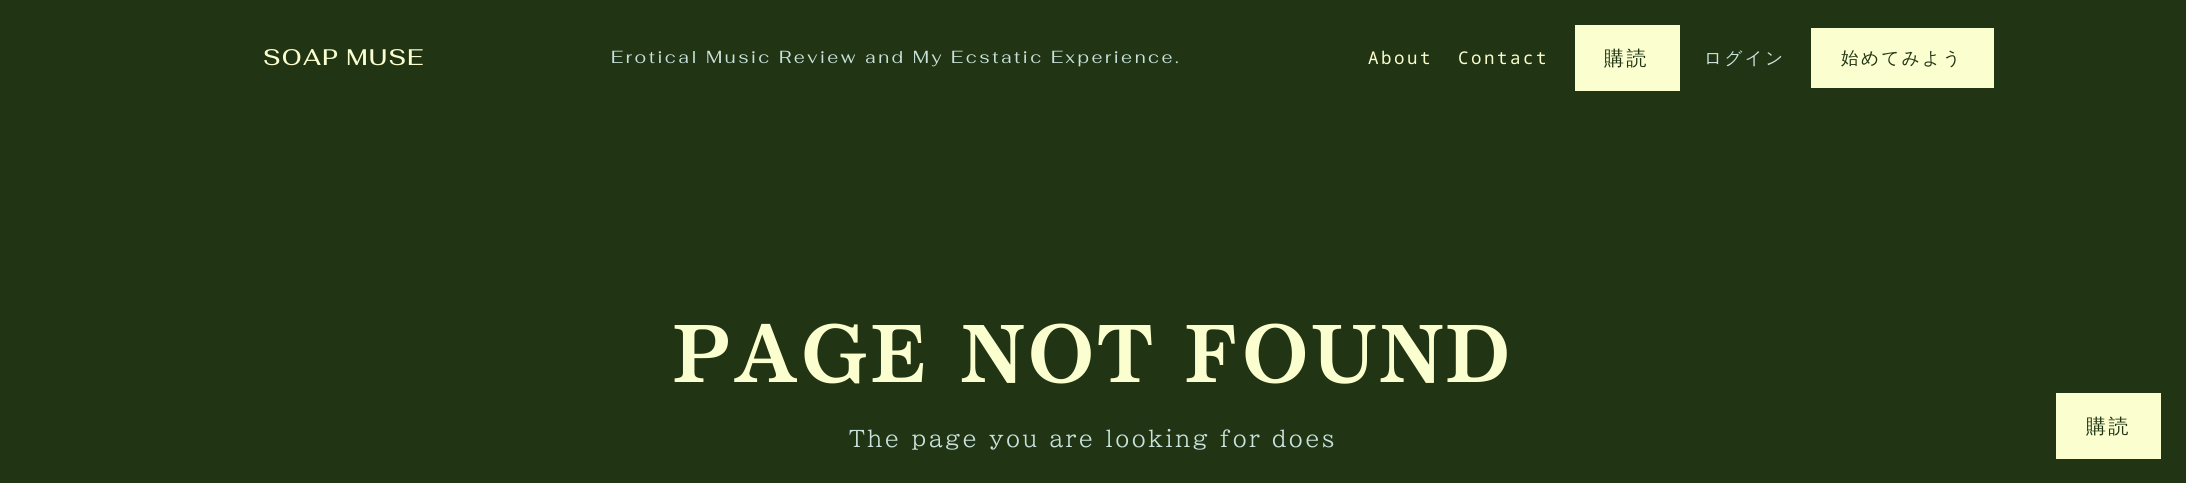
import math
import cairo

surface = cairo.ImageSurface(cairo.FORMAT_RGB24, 2186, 483)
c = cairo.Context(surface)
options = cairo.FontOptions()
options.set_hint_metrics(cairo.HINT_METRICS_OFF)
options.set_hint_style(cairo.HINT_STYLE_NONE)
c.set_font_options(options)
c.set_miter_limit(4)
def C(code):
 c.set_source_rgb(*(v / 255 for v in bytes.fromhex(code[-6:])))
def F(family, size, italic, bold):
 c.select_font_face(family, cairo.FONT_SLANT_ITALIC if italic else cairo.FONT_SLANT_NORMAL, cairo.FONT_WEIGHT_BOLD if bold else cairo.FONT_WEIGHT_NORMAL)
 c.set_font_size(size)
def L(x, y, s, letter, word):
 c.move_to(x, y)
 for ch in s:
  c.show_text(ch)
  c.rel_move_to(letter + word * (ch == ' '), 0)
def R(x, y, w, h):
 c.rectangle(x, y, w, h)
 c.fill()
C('213414')
c.paint()
F('Fahkwang Medium',22.5,0,0)
C('fbffcf')
L(263,65,'SOAP MUSE',1.25,0)
F('Fahkwang',17.5,0,0)
C('c9e2db')
L(611,63,'Erotical Music Review and My Ecstatic Experience.',2.5,0)
F('Noto Sans Mono',17.5,0,0)
C('fbffcf')
L(1368,64,'About',2.5,0)
L(1458,64,'Contact',2.5,0)
R(1575,25,105,66)
F('WenQuanYi Zen Hei Medium',20,0,0)
C('213414')
L(1604,65,'購読',2.5,0)
F('WenQuanYi Zen Hei Medium',17.5,0,0)
C('c9e2db')
L(1704,64,'ログイン',2.5,0)
C('fbffcf')
R(1811,28,183,60)
C('213414')
L(1841,64,'始めてみよう',2.5,0)
F('BIZ UDPMincho',75,0,1)
C('fbffcf')
L(673,382,'PAGE NOT FOUND',2.5,0)
F('BIZ UDPMincho',22.5,0,0)
C('c9e2db')
L(849,447,'The page you are looking for does',2.5,0)
C('fbffcf')
R(2056,393,105,66)
F('WenQuanYi Zen Hei Medium',20,0,0)
C('213414')
L(2086,433,'購読',2.5,0)
surface.write_to_png('o.png')
